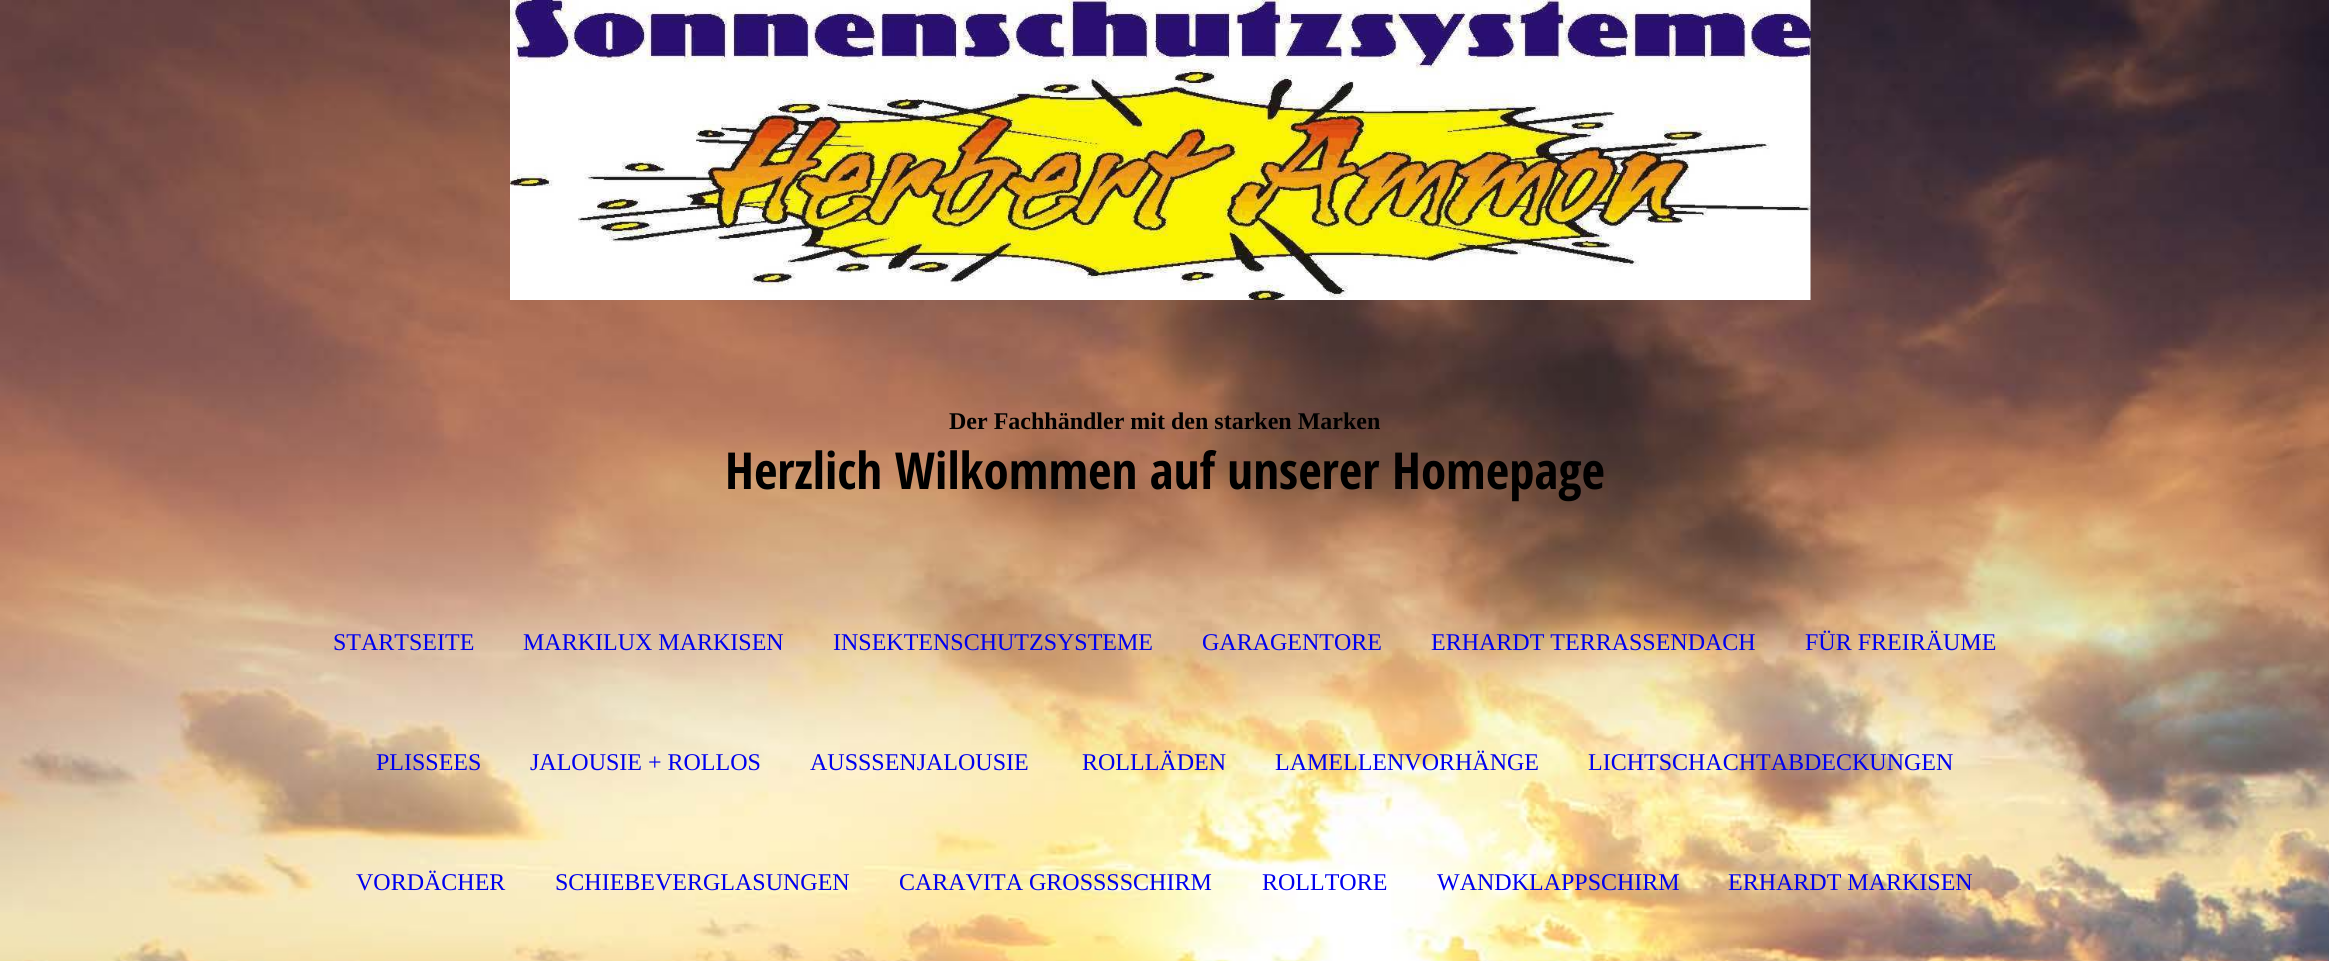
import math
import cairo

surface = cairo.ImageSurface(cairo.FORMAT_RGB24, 2329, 961)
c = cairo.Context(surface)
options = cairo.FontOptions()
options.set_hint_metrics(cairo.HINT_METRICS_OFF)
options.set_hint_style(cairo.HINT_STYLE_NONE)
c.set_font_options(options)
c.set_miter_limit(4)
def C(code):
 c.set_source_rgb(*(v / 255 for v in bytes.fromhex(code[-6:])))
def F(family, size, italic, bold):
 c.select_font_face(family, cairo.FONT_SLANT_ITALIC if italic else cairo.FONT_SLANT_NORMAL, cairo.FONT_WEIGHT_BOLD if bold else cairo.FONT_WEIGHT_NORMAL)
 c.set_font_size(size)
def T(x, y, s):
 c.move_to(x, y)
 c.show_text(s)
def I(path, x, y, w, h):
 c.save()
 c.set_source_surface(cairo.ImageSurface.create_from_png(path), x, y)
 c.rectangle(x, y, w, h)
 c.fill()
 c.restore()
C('ffffff')
c.paint()
I('1.png',0,0,2329,961)
I('2.png',510,0,1301,300)
F('Liberation Serif',24,0,1)
C('000000')
T(949,429,'Der Fachhändler mit den starken Marken')
F('Open Sans Condensed',51,0,1)
T(725,489,'Herzlich Wilkommen auf unserer Homepage')
F('Liberation Serif',24,0,0)
C('0000ee')
T(333,650,'STARTSEITE')
T(523,650,'MARKILUX MARKISEN')
T(833,650,'INSEKTENSCHUTZSYSTEME')
T(1202,650,'GARAGENTORE')
T(1431,650,'ERHARDT TERRASSENDACH')
T(1805,650,'FÜR FREIRÄUME')
T(376,770,'PLISSEES')
T(530,770,'JALOUSIE + ROLLOS')
T(810,770,'AUSSSENJALOUSIE')
T(1082,770,'ROLLLÄDEN')
T(1275,770,'LAMELLENVORHÄNGE')
T(1588,770,'LICHTSCHACHTABDECKUNGEN')
T(356,890,'VORDÄCHER')
T(555,890,'SCHIEBEVERGLASUNGEN')
T(899,890,'CARAVITA GROSSSSCHIRM')
T(1262,890,'ROLLTORE')
T(1437,890,'WANDKLAPPSCHIRM')
T(1728,890,'ERHARDT MARKISEN')
surface.write_to_png('o.png')
